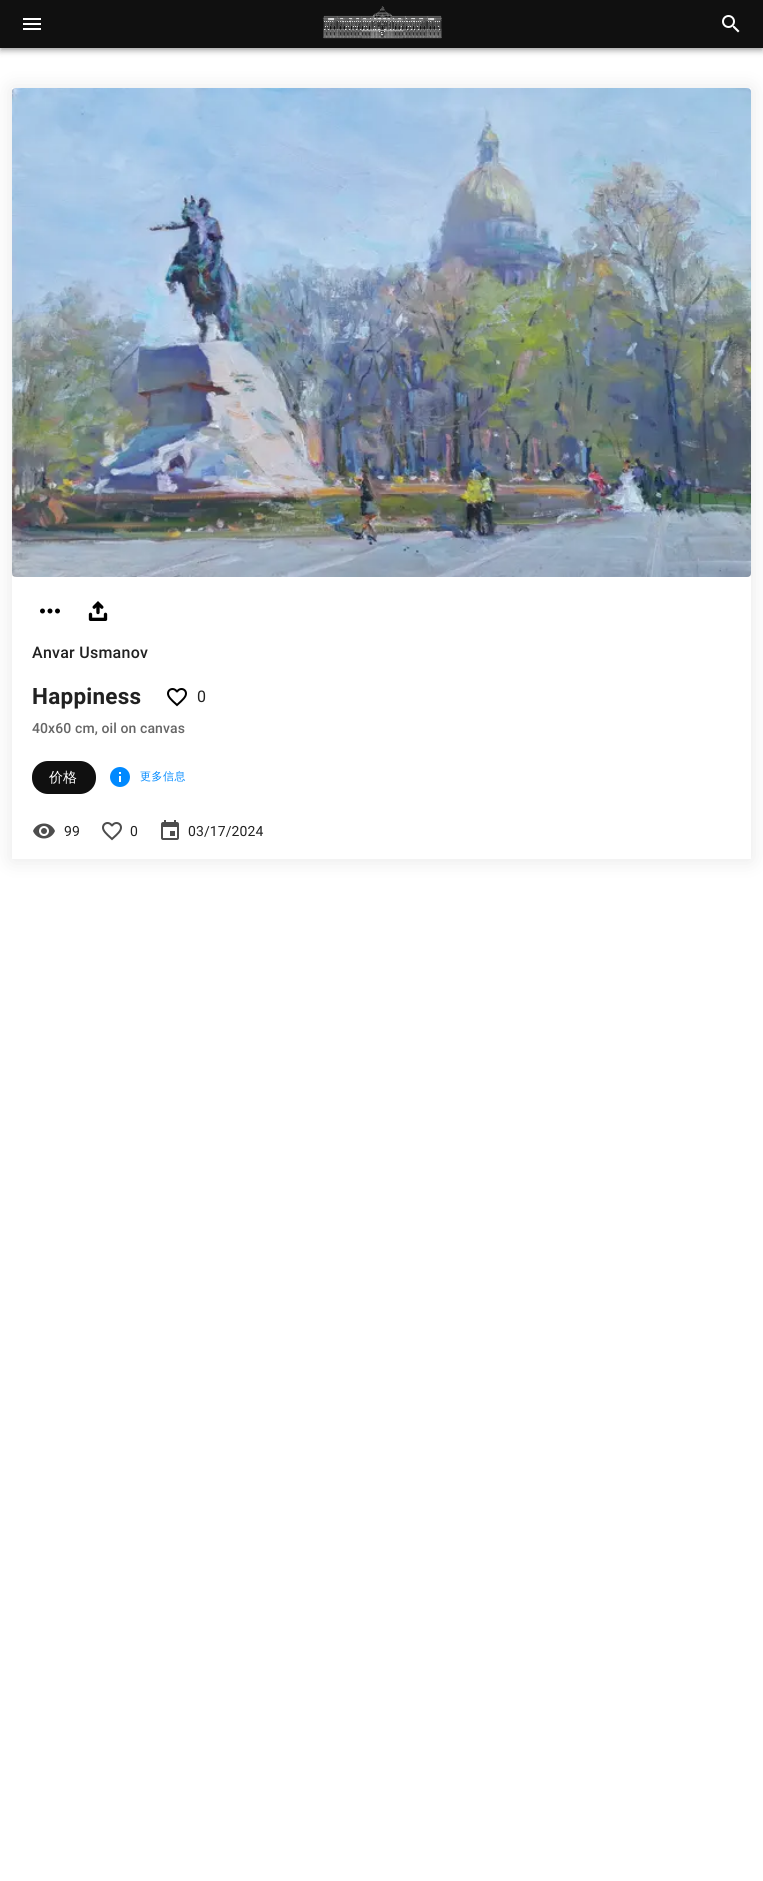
import math
import cairo

surface = cairo.ImageSurface(cairo.FORMAT_RGB24, 763, 1881)
c = cairo.Context(surface)
options = cairo.FontOptions()
options.set_hint_metrics(cairo.HINT_METRICS_OFF)
options.set_hint_style(cairo.HINT_STYLE_NONE)
c.set_font_options(options)
c.set_miter_limit(4)
def C(code):
 c.set_source_rgb(*(v / 255 for v in bytes.fromhex(code[-6:])))
def F(family, size, italic, bold):
 c.select_font_face(family, cairo.FONT_SLANT_ITALIC if italic else cairo.FONT_SLANT_NORMAL, cairo.FONT_WEIGHT_BOLD if bold else cairo.FONT_WEIGHT_NORMAL)
 c.set_font_size(size)
def T(x, y, s):
 c.move_to(x, y)
 c.show_text(s)
def L(x, y, s, letter, word):
 c.move_to(x, y)
 for ch in s:
  c.show_text(ch)
  c.rel_move_to(letter + word * (ch == ' '), 0)
def R(x, y, w, h):
 c.rectangle(x, y, w, h)
 c.fill()
def Q(x, y, w, h, r):
 c.new_sub_path()
 for i, (u, v) in enumerate([(x + w - r, y + h - r), (x + r, y + h - r), (x + r, y + r), (x + w - r, y + r)]):
  c.arc(u, v, r, i * math.pi / 2, (i + 1) * math.pi / 2)
 c.close_path()
def S(x, y, w, h, r, blur, alpha):
 c.push_group_with_content(cairo.CONTENT_ALPHA)
 c.set_operator(cairo.OPERATOR_SOURCE)
 for i in range(15, -16, -2):
  e = blur * i / 6
  if min(w, h) + 2 * e > 0:
   c.set_source_rgba(0, 0, 0, alpha * math.erfc((i - 1) / 8.5) / 2)
   Q(x - e, y - e, w + 2 * e, h + 2 * e, max(0, min(r + e + blur * .6, min(w, h) / 2 + e)))
   c.fill()
 c.mask(c.pop_group())
def I(path, x, y, w, h):
 c.save()
 c.set_source_surface(cairo.ImageSurface.create_from_png(path), x, y)
 c.rectangle(x, y, w, h)
 c.fill()
 c.restore()
C('ffffff')
c.paint()
C('000000')
S(0,1,763,48,0,5,.12)
S(0,4,763,48,0,2.5,.14)
S(1,3,761,46,0,2,.2)
C('101010')
R(0,0,763,48)
I('1.png',23,18,18,12)
I('2.png',322,6,120,33)
I('3.png',722,15,18,18)
c.save()
c.set_fill_rule(cairo.FILL_RULE_EVEN_ODD)
c.new_path()
c.move_to(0,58)
c.line_to(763,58)
c.line_to(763,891)
c.line_to(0,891)
c.close_path()
c.move_to(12,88)
c.line_to(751,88)
c.line_to(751,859)
c.line_to(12,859)
c.close_path()
c.clip()
C('000000')
S(12,89,739,771,0,10,.1)
c.restore()
I('4.png',12,88,739,489)
I('5.png',40,608,20,6)
I('6.png',88,601,20,20)
F('Roboto Medium',16,0,0)
C('212121')
L(32,658,'Anvar Usmanov',.25,0)
F('Roboto',22.5,0,1)
L(32,704,'Happiness',.25,0)
I('7.png',167,688,20,19)
F('Roboto',16,0,0)
T(197,702,'0')
F('Roboto Medium',14,0,0)
C('666666')
L(32,733,'40x60 cm, oil on canvas',.1,0)
C('101010')
Q(32,761,64,33,16)
c.fill()
F('WenQuanYi Zen Hei Medium',14,0,0)
C('ffffff')
T(49,782,'价格')
I('8.png',110,767,20,20)
F('WenQuanYi Zen Hei Medium',11,0,0)
C('0089ff')
L(140,780,'更多信息',.5,0)
I('9.png',33,823,22,16)
F('Roboto',14,0,0)
C('212121')
L(64,836,'99',.1,0)
I('10.png',102,822,20,19)
L(130,836,'0',.1,0)
I('11.png',161,820,18,20)
L(188,836,'03/17/2024',.1,0)
surface.write_to_png('o.png')
